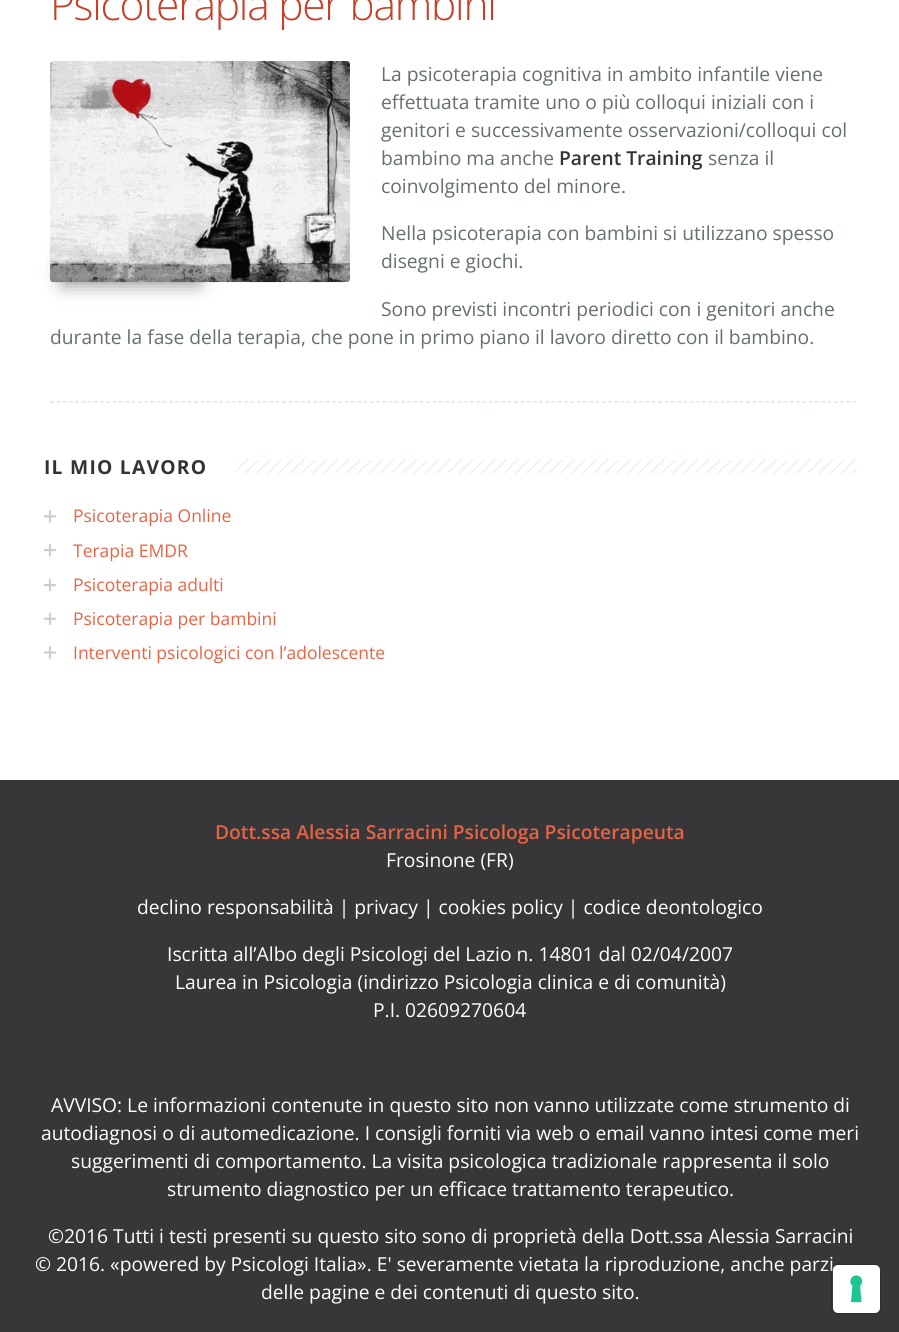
import math
import cairo

surface = cairo.ImageSurface(cairo.FORMAT_RGB24, 899, 1332)
c = cairo.Context(surface)
options = cairo.FontOptions()
options.set_hint_metrics(cairo.HINT_METRICS_OFF)
options.set_hint_style(cairo.HINT_STYLE_NONE)
c.set_font_options(options)
c.set_miter_limit(4)
def C(code):
 c.set_source_rgb(*(v / 255 for v in bytes.fromhex(code[-6:])))
def F(family, size, italic, bold):
 c.select_font_face(family, cairo.FONT_SLANT_ITALIC if italic else cairo.FONT_SLANT_NORMAL, cairo.FONT_WEIGHT_BOLD if bold else cairo.FONT_WEIGHT_NORMAL)
 c.set_font_size(size)
def T(x, y, s):
 c.move_to(x, y)
 c.show_text(s)
def L(x, y, s, letter, word):
 c.move_to(x, y)
 for ch in s:
  c.show_text(ch)
  c.rel_move_to(letter + word * (ch == ' '), 0)
def R(x, y, w, h):
 c.rectangle(x, y, w, h)
 c.fill()
def Q(x, y, w, h, r):
 c.new_sub_path()
 for i, (u, v) in enumerate([(x + w - r, y + h - r), (x + r, y + h - r), (x + r, y + r), (x + w - r, y + r)]):
  c.arc(u, v, r, i * math.pi / 2, (i + 1) * math.pi / 2)
 c.close_path()
def S(x, y, w, h, r, blur, alpha):
 c.push_group_with_content(cairo.CONTENT_ALPHA)
 c.set_operator(cairo.OPERATOR_SOURCE)
 for i in range(15, -16, -2):
  e = blur * i / 6
  if min(w, h) + 2 * e > 0:
   c.set_source_rgba(0, 0, 0, alpha * math.erfc((i - 1) / 8.5) / 2)
   Q(x - e, y - e, w + 2 * e, h + 2 * e, max(0, min(r + e + blur * .6, min(w, h) / 2 + e)))
   c.fill()
 c.mask(c.pop_group())
def I(path, x, y, w, h):
 c.save()
 c.set_source_surface(cairo.ImageSurface.create_from_png(path), x, y)
 c.rectangle(x, y, w, h)
 c.fill()
 c.restore()
C('ffffff')
c.paint()
F('Open Sans Light',42.5,0,0)
C('c93f25')
L(50,20,'Psicoterapia per bambini',-1.25,0)
C('000000')
S(63,258,135,25,0,9.5,.5)
I('1.png',50,61,300,222)
F('Open Sans',19.25,0,0)
C('666e70')
T(381,81,'La psicoterapia cognitiva in ambito infantile viene')
T(381,109,'effettuata tramite uno o più colloqui iniziali con i')
T(381,137,'genitori e successivamente osservazioni/colloqui col')
T(381,165,'bambino ma anche')
F('Open Sans SemiBold',19.25,0,0)
C('333333')
T(559,165,'Parent Training')
F('Open Sans',19.25,0,0)
C('666e70')
T(708,165,'senza il')
T(381,193,'coinvolgimento del minore.')
T(381,240,'Nella psicoterapia con bambini si utilizzano spesso')
T(381,268,'disegni e giochi.')
T(381,316,'Sono previsti incontri periodici con i genitori anche')
T(50,344,'durante la fase della terapia, che pone in primo piano il lavoro diretto con il bambino.')
c.new_path()
c.move_to(50,402)
c.line_to(856,402)
C('d6dfdf')
c.set_line_width(1.2)
c.set_dash([3.75,2.52])
c.stroke()
F('Open Sans',19.25,0,1)
C('333333')
L(44,474,'IL MIO LAVORO',1.25,0)
I('2.png',236,459,621,15)
I('3.png',43,510,13,13)
F('Open Sans',17.5,0,0)
C('e86343')
T(73,522,'Psicoterapia Online')
I('4.png',43,544,13,13)
T(73,557,'Terapia EMDR')
I('4.png',43,579,13,13)
T(73,591,'Psicoterapia adulti')
I('5.png',43,612,13,13)
T(73,625,'Psicoterapia per bambini')
I('6.png',43,646,13,13)
T(73,659,'Interventi psicologici con l’adolescente')
C('2e343a')
R(0,780,899,1)
C('373639')
R(0,781,899,551)
F('Open Sans SemiBold',19.25,0,0)
C('e86343')
T(215,839,'Dott.ssa Alessia Sarracini Psicologa Psicoterapeuta')
F('Open Sans',19.25,0,0)
C('ffffff')
T(386,867,'Frosinone (FR)')
T(137,914,'declino responsabilità | privacy | cookies policy | codice deontologico')
T(167,961,'Iscritta all’Albo degli Psicologi del Lazio n. 14801 dal 02/04/2007')
T(175,989,'Laurea in Psicologia (indirizzo Psicologia clinica e di comunità)')
T(373,1017,'P.I. 02609270604')
T(51,1112,'AVVISO: Le informazioni contenute in questo sito non vanno utilizzate come strumento di')
T(41,1140,'autodiagnosi o di automedicazione. I consigli forniti via web o email vanno intesi come meri')
T(71,1168,'suggerimenti di comportamento. La visita psicologica tradizionale rappresenta il solo')
T(167,1196,'strumento diagnostico per un efficace trattamento terapeutico.')
T(48,1243,'©2016 Tutti i testi presenti su questo sito sono di proprietà della Dott.ssa Alessia Sarracini')
T(35,1271,'© 2016. «powered by Psicologi Italia». E\' severamente vietata la riproduzione, anche parzi')
T(261,1299,'delle pagine e dei contenuti di questo sito.')
Q(831.5,1264.5,49,49,5.5)
c.set_source_rgba(0,0,0,0.15)
c.set_line_width(1)
c.set_dash([])
c.stroke()
C('ffffff')
Q(833,1265,47,48,5)
c.fill()
I('7.png',850,1275,13,28)
surface.write_to_png('o.png')
